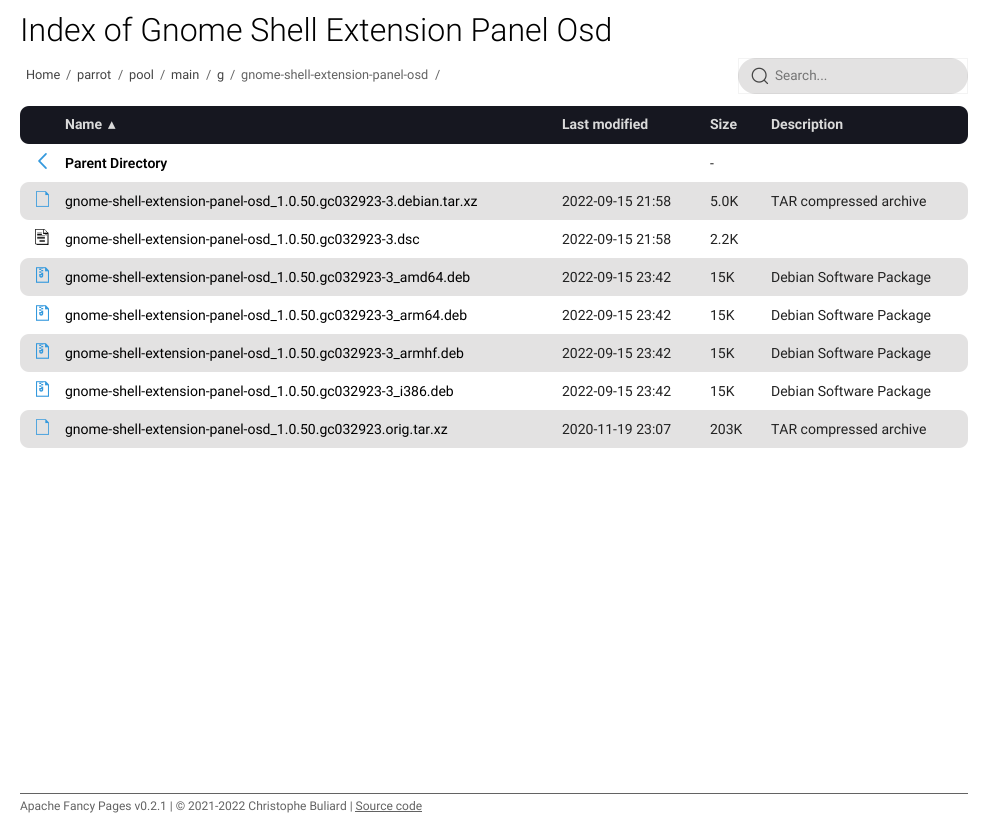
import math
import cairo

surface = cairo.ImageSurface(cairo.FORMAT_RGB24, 988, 824)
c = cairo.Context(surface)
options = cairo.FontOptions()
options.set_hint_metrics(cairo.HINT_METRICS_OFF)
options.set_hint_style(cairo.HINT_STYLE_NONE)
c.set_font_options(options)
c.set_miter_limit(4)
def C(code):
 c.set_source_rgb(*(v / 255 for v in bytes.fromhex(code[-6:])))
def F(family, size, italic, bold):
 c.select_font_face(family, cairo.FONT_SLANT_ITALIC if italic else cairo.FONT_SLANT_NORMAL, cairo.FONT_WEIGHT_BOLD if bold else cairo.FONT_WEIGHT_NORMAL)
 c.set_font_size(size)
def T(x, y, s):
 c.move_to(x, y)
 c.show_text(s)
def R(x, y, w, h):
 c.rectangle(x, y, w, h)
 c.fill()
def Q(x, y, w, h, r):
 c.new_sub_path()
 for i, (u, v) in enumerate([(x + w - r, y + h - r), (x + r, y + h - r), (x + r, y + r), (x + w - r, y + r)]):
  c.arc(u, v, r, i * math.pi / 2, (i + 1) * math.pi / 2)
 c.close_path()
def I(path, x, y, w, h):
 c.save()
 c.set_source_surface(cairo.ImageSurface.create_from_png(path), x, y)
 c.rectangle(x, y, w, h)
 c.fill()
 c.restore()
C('ffffff')
c.paint()
F('Roboto Light',32,0,0)
C('000000')
T(20,41,'Index of Gnome Shell Extension Panel Osd')
F('Roboto',12.75,0,0)
C('444444')
T(26,79,'Home')
C('636363')
T(66,79,'/')
C('444444')
T(77,79,'parrot')
C('636363')
T(118,79,'/')
C('444444')
T(129,79,'pool')
C('636363')
T(160,79,'/')
C('444444')
T(171,79,'main')
C('636363')
T(206,79,'/')
C('444444')
T(217,79,'g')
C('636363')
T(230,79,'/')
T(241,79,'gnome-shell-extension-panel-osd')
T(435,79,'/')
C('e3e2e2')
Q(738,58,230,36,18)
c.fill()
c.rectangle(738.5,58.5,229,35)
c.set_source_rgba(0,0,0,0.05)
c.set_line_width(1)
c.stroke()
I('1.png',751,67,18,18)
F('Roboto',13.5,0,0)
C('757575')
T(775,80,'Search...')
C('161720')
c.new_path()
c.move_to(29,106)
c.line_to(65,106)
c.line_to(65,144)
c.line_to(29,144)
c.curve_to(24,144,20,140,20,135)
c.line_to(20,115)
c.curve_to(20,110,24,106,29,106)
c.close_path()
c.fill()
R(65,106,696,38)
F('Roboto',14,0,1)
C('dadada')
T(65,129,'Name')
F('DejaVu Sans',14,0,1)
T(108,129,'▴')
F('Roboto',14,0,1)
T(562,129,'Last modified')
T(710,129,'Size')
C('161720')
c.new_path()
c.move_to(761,106)
c.line_to(959,106)
c.curve_to(964,106,968,110,968,115)
c.line_to(968,135)
c.curve_to(968,140,964,144,959,144)
c.line_to(761,144)
c.close_path()
c.fill()
C('dadada')
T(771,129,'Description')
I('2.png',38,153,9,16)
F('Roboto SemiBold',14,0,0)
C('000000')
T(65,168,'Parent Directory')
F('Roboto',14,0,0)
C('222222')
T(710,168,'-')
C('e3e2e2')
c.new_path()
c.move_to(29,182)
c.line_to(65,182)
c.line_to(65,220)
c.line_to(29,220)
c.curve_to(24,220,20,216,20,211)
c.line_to(20,191)
c.curve_to(20,186,24,182,29,182)
c.close_path()
c.fill()
I('3.png',36,191,13,16)
R(65,182,696,38)
C('000000')
T(65,206,'gnome-shell-extension-panel-osd_1.0.50.gc032923-3.debian.tar.xz')
C('222222')
T(562,206,'2022-09-15 21:58')
T(710,206,'5.0K')
C('e3e2e2')
c.new_path()
c.move_to(761,182)
c.line_to(959,182)
c.curve_to(964,182,968,186,968,191)
c.line_to(968,211)
c.curve_to(968,216,964,220,959,220)
c.line_to(761,220)
c.close_path()
c.fill()
C('222222')
T(771,206,'TAR compressed archive')
I('4.png',35,229,14,16)
C('000000')
T(65,244,'gnome-shell-extension-panel-osd_1.0.50.gc032923-3.dsc')
C('222222')
T(562,244,'2022-09-15 21:58')
T(710,244,'2.2K')
C('e3e2e2')
c.new_path()
c.move_to(29,258)
c.line_to(65,258)
c.line_to(65,296)
c.line_to(29,296)
c.curve_to(24,296,20,292,20,287)
c.line_to(20,267)
c.curve_to(20,262,24,258,29,258)
c.close_path()
c.fill()
I('5.png',36,267,13,16)
R(65,258,696,38)
C('000000')
T(65,282,'gnome-shell-extension-panel-osd_1.0.50.gc032923-3_amd64.deb')
C('222222')
T(562,282,'2022-09-15 23:42')
T(710,282,'15K')
C('e3e2e2')
c.new_path()
c.move_to(761,258)
c.line_to(959,258)
c.curve_to(964,258,968,262,968,267)
c.line_to(968,287)
c.curve_to(968,292,964,296,959,296)
c.line_to(761,296)
c.close_path()
c.fill()
C('222222')
T(771,282,'Debian Software Package')
I('6.png',36,305,13,16)
C('000000')
T(65,320,'gnome-shell-extension-panel-osd_1.0.50.gc032923-3_arm64.deb')
C('222222')
T(562,320,'2022-09-15 23:42')
T(710,320,'15K')
T(771,320,'Debian Software Package')
C('e3e2e2')
c.new_path()
c.move_to(29,334)
c.line_to(65,334)
c.line_to(65,372)
c.line_to(29,372)
c.curve_to(24,372,20,368,20,363)
c.line_to(20,343)
c.curve_to(20,338,24,334,29,334)
c.close_path()
c.fill()
I('5.png',36,343,13,16)
R(65,334,696,38)
C('000000')
T(65,358,'gnome-shell-extension-panel-osd_1.0.50.gc032923-3_armhf.deb')
C('222222')
T(562,358,'2022-09-15 23:42')
T(710,358,'15K')
C('e3e2e2')
c.new_path()
c.move_to(761,334)
c.line_to(959,334)
c.curve_to(964,334,968,338,968,343)
c.line_to(968,363)
c.curve_to(968,368,964,372,959,372)
c.line_to(761,372)
c.close_path()
c.fill()
C('222222')
T(771,358,'Debian Software Package')
I('6.png',36,381,13,16)
C('000000')
T(65,396,'gnome-shell-extension-panel-osd_1.0.50.gc032923-3_i386.deb')
C('222222')
T(562,396,'2022-09-15 23:42')
T(710,396,'15K')
T(771,396,'Debian Software Package')
C('e3e2e2')
c.new_path()
c.move_to(29,410)
c.line_to(65,410)
c.line_to(65,448)
c.line_to(29,448)
c.curve_to(24,448,20,444,20,439)
c.line_to(20,419)
c.curve_to(20,414,24,410,29,410)
c.close_path()
c.fill()
I('3.png',36,419,13,16)
R(65,410,696,38)
C('000000')
T(65,434,'gnome-shell-extension-panel-osd_1.0.50.gc032923.orig.tar.xz')
C('222222')
T(562,434,'2020-11-19 23:07')
T(710,434,'203K')
C('e3e2e2')
c.new_path()
c.move_to(761,410)
c.line_to(959,410)
c.curve_to(964,410,968,414,968,419)
c.line_to(968,439)
c.curve_to(968,444,964,448,959,448)
c.line_to(761,448)
c.close_path()
c.fill()
C('222222')
T(771,434,'TAR compressed archive')
C('636363')
R(20,793,948,1)
F('Roboto',12,0,0)
T(20,810,'Apache Fancy Pages v0.2.1 | © 2021-2022 Christophe Buliard | Source code')
R(355,811,67,1)
surface.write_to_png('o.png')
